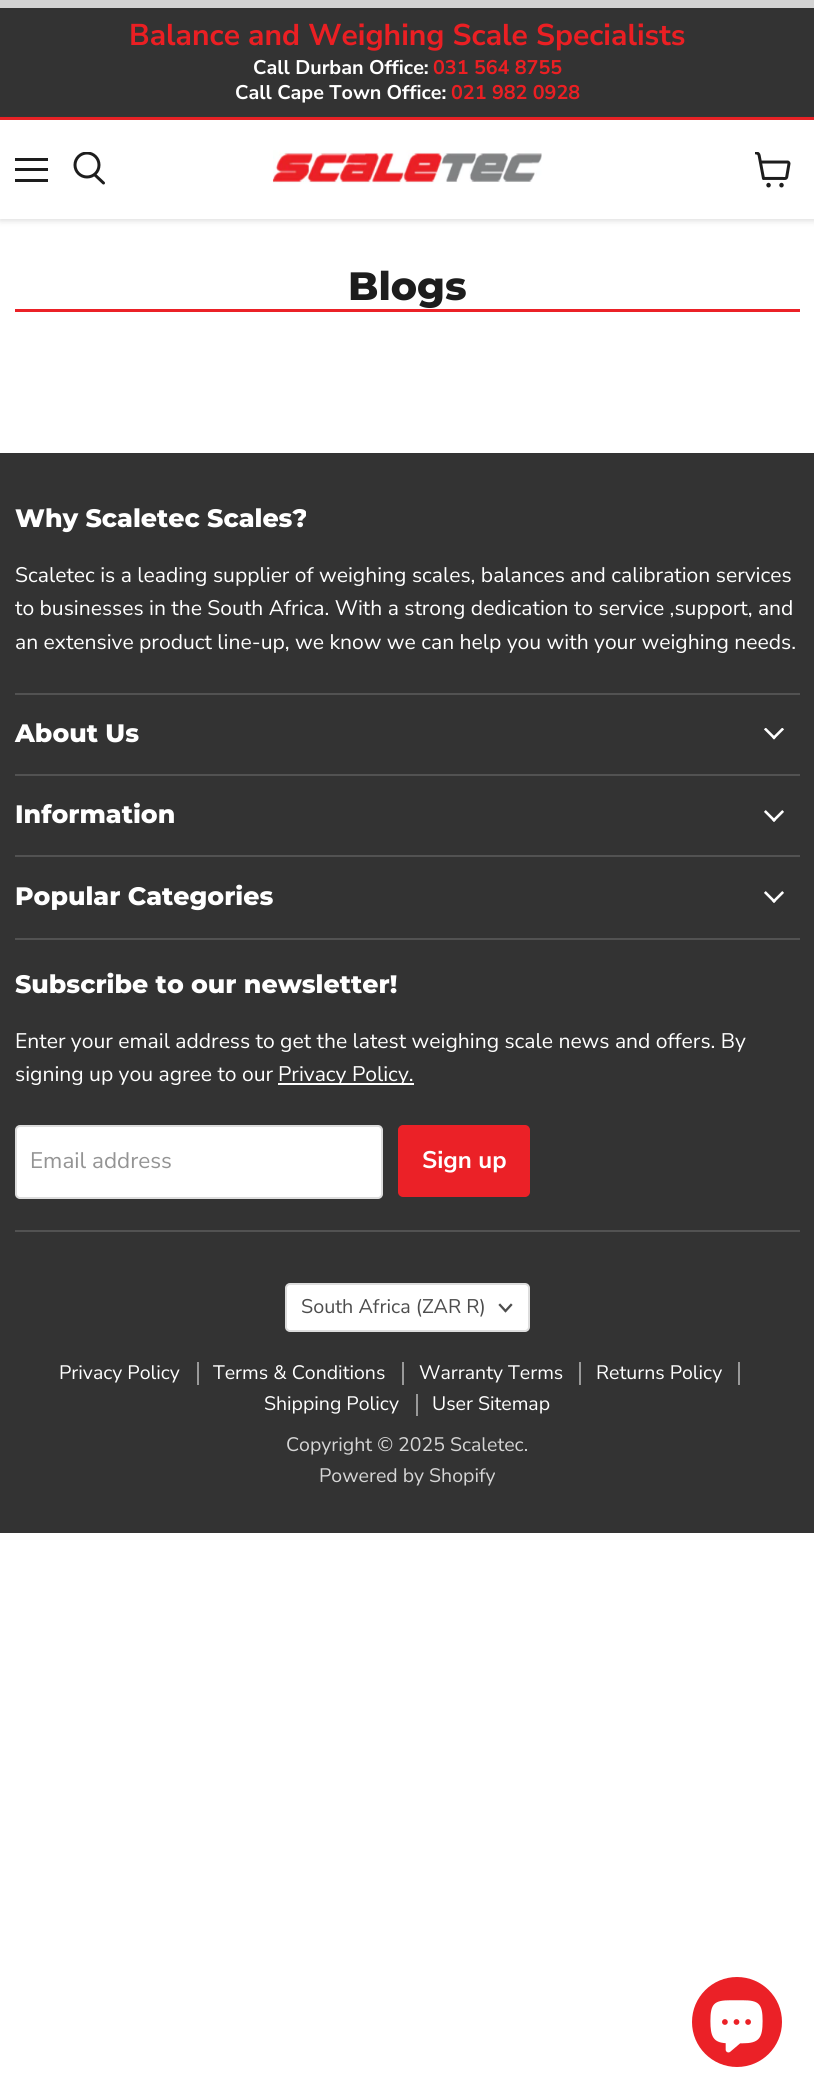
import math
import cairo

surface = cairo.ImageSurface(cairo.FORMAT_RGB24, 814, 2098)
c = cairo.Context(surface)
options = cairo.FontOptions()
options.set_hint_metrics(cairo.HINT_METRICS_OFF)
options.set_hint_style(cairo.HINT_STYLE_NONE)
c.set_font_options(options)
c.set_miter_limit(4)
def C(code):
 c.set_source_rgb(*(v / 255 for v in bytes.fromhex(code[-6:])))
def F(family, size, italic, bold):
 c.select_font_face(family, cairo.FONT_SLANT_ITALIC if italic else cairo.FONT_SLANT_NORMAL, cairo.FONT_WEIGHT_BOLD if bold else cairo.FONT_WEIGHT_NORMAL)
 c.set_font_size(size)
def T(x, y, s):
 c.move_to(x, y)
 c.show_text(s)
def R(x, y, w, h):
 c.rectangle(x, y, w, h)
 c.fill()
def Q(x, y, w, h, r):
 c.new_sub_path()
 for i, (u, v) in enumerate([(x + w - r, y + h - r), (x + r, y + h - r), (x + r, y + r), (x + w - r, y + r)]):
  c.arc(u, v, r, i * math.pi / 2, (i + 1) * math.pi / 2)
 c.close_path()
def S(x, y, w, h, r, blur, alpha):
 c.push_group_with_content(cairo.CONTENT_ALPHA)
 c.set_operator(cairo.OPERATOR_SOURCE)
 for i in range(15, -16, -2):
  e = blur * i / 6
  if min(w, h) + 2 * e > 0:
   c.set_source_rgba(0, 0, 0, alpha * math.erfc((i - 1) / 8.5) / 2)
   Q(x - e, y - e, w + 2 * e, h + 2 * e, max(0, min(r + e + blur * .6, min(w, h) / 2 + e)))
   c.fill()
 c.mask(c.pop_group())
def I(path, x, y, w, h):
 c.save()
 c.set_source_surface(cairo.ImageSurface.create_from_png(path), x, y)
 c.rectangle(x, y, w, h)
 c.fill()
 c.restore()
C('ffffff')
c.paint()
C('333333')
R(0,8,814,109)
C('d3d3d3')
R(0,0,814,8)
F('Nunito Sans',30,0,1)
C('eb1f23')
T(129,45,'Balance and Weighing Scale Specialists')
F('Nunito Sans',19.75,0,1)
C('ffffff')
T(253,74,'Call Durban Office:')
C('eb1f23')
T(433,74,'031 564 8755')
C('ffffff')
T(235,99,'Call Cape Town Office:')
C('eb1f23')
T(451,99,'021 982 0928')
R(0,117,814,3)
C('808080')
S(0,122,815,99,0,3,.25)
C('ffffff')
R(0,120,814,99)
C('1d1d1d')
R(15,158,33,3)
R(15,168,33,3)
R(15,179,33,3)
c.new_path()
c.move_to(103.5,183)
c.line_to(95,175)
c.set_line_width(3)
c.set_line_cap(cairo.LINE_CAP_ROUND)
c.stroke()
c.save()
c.rectangle(72,152,35,36)
c.clip()
c.arc(87,165,12,0,2 * math.pi)
c.set_line_cap(cairo.LINE_CAP_BUTT)
c.stroke()
c.restore()
I('1.png',272,150,270,34)
I('2.png',755,152,36,36)
F('Montserrat ExtraBold',39.5,0,0)
T(348,300,'Blogs')
C('eb2127')
R(15,309,785,3)
C('333333')
R(0,453,814,1080)
C('525252')
R(15,693,785,2)
F('Montserrat ExtraBold',25.25,0,0)
C('ffffff')
T(15,527,'Why Scaletec Scales?')
F('Nunito Sans',21.1,0,0)
T(15,582,'Scaletec is a leading supplier of weighing scales, balances and calibration services')
T(15,615,'to businesses in the South Africa. With a strong dedication to service ,support, and')
T(15,649,'an extensive product line-up, we know we can help you with your weighing needs.')
C('525252')
R(15,774,785,2)
F('Montserrat ExtraBold',25.25,0,0)
C('ffffff')
T(15,742,'About Us')
I('3.png',764,728,20,12)
C('525252')
R(15,855,785,2)
C('ffffff')
T(15,823,'Information')
I('4.png',764,810,20,12)
C('525252')
R(15,938,785,2)
C('ffffff')
T(15,905,'Popular Categories')
I('4.png',764,891,20,12)
C('525252')
R(15,1230,785,2)
C('ffffff')
T(15,993,'Subscribe to our newsletter!')
F('Nunito Sans',21.1,0,0)
T(15,1048,'Enter your email address to get the latest weighing scale news and offers. By')
T(15,1081,'signing up you agree to our')
R(278,1083,136,2)
T(278,1081,'Privacy Policy.')
Q(16,1126,366,72,4)
c.fill_preserve()
C('dddddd')
c.set_line_width(2)
c.set_line_cap(cairo.LINE_CAP_BUTT)
c.stroke()
F('Nunito Sans',22.5,0,0)
C('949494')
T(30,1168,'Email address')
C('eb2127')
Q(399,1126,130,70,4)
c.fill_preserve()
c.stroke()
F('Nunito Sans',24,0,1)
C('ffffff')
T(422,1168,'Sign up')
Q(286,1284,243,47,4)
c.fill_preserve()
C('dddddd')
c.stroke()
F('Nunito Sans',19.75,0,0)
C('4d4d4d')
T(301,1313,'South Africa (ZAR R)')
c.new_path()
c.move_to(505.5,1311)
c.line_to(511,1305)
c.move_to(505.5,1311)
c.line_to(500,1305)
c.set_line_width(2.3)
c.set_line_cap(cairo.LINE_CAP_SQUARE)
c.stroke()
C('999999')
R(197,1362,2,23)
F('Nunito Sans',19.5,0,0)
C('ffffff')
T(59,1379,'Privacy Policy')
C('999999')
R(402,1362,2,23)
C('ffffff')
T(213,1379,'Terms & Conditions')
C('999999')
R(579,1362,2,23)
C('ffffff')
T(419,1379,'Warranty Terms')
C('999999')
R(738,1362,2,23)
C('ffffff')
T(596,1379,'Returns Policy')
C('999999')
R(416,1394,2,22)
C('ffffff')
T(264,1410,'Shipping Policy')
T(432,1410,'User Sitemap')
C('d6d6d6')
T(286,1451,'Copyright © 2025 Scaletec.')
T(319,1482,'Powered by Shopify')
C('eb2127')
c.new_path()
c.arc(737,2022,45,0,2 * math.pi)
c.fill()
I('5.png',710,2000,53,53)
surface.write_to_png('o.png')
